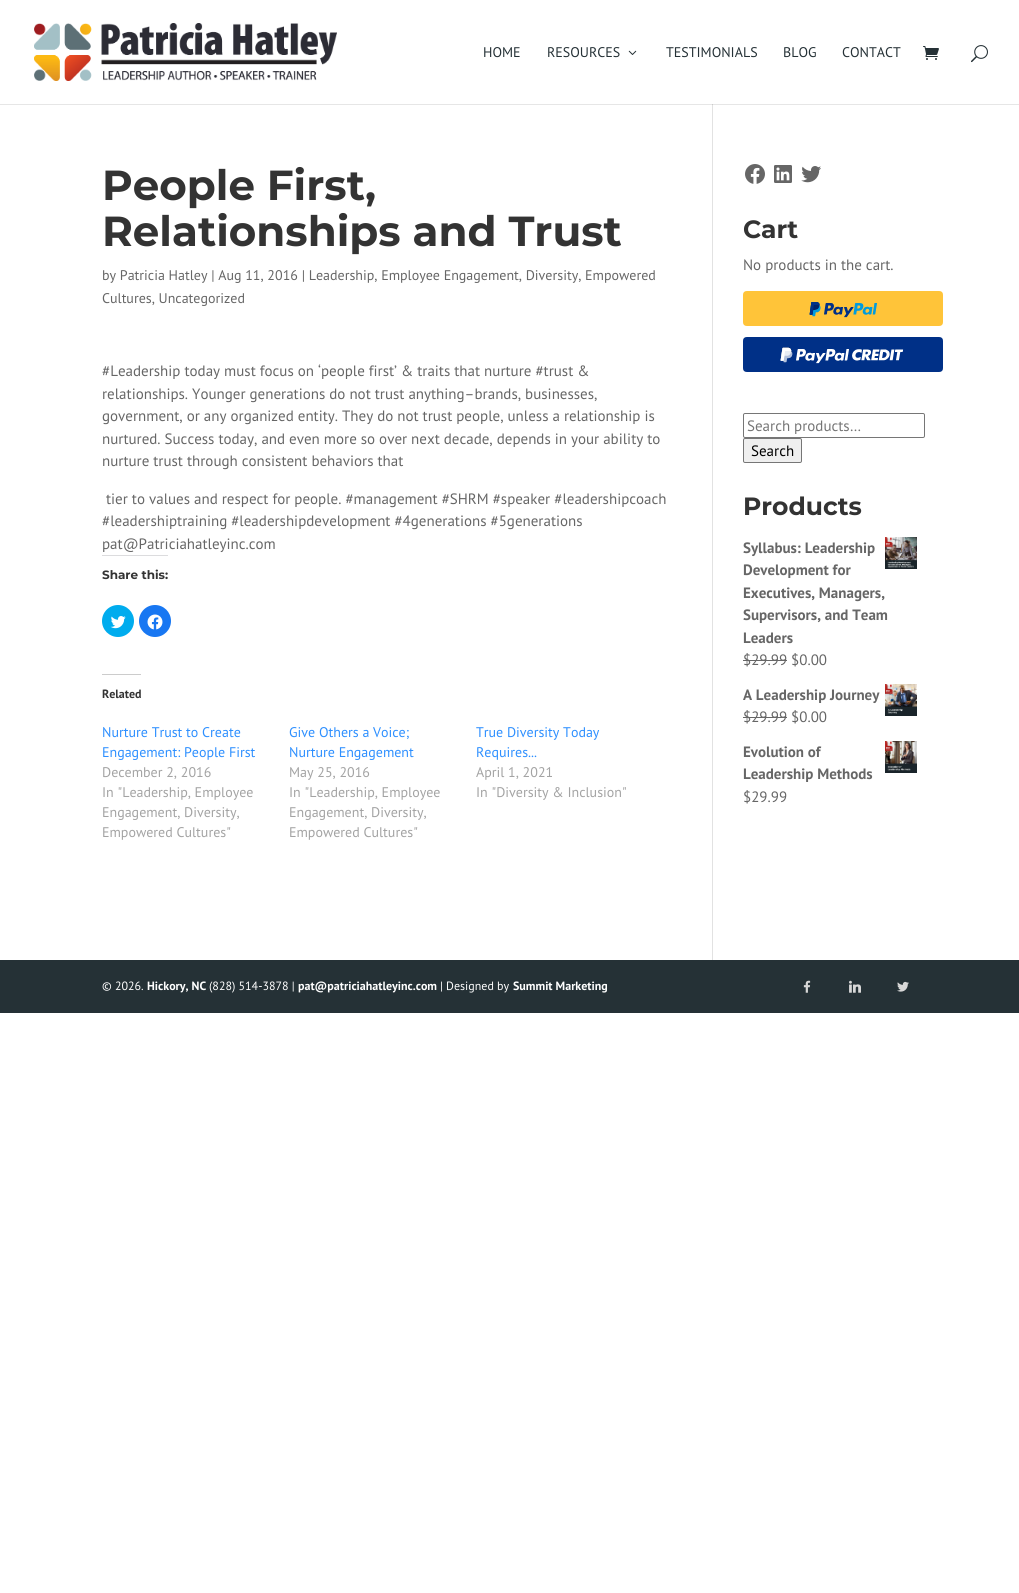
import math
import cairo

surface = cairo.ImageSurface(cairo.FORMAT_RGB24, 1019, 1593)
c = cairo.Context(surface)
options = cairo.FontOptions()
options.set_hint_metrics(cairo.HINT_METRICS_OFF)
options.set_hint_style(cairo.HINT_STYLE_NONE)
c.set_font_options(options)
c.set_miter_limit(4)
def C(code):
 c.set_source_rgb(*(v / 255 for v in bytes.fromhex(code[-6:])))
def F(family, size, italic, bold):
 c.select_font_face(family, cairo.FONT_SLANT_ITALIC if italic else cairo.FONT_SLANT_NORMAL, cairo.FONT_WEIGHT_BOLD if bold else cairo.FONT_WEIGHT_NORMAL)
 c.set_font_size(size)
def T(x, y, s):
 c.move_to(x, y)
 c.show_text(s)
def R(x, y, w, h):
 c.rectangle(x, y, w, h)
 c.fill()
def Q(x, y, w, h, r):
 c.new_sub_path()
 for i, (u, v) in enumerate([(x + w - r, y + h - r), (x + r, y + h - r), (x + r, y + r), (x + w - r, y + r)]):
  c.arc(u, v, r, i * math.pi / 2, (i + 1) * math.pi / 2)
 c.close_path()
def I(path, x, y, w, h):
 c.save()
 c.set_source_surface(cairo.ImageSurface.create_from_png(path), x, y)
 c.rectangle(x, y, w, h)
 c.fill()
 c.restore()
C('ffffff')
c.paint()
C('e6e6e6')
R(0,104,1019,1)
I('1.png',34,23,303,58)
F('PT Sans',14,0,0)
C('253136')
T(483,57,'HOME')
T(547,57,'RESOURCES')
I('2.png',628,50,9,5)
T(666,57,'TESTIMONIALS')
T(783,57,'BLOG')
T(842,57,'CONTACT')
I('3.png',923,46,16,14)
I('4.png',971,45,17,18)
C('e2e2e2')
R(712,104,1,856)
C('cbcbcb')
R(712,104,1,1)
F('Montserrat',42,0,1)
C('333333')
T(102,200,'People First,')
T(102,246,'Relationships and Trust')
F('PT Sans',14,0,0)
C('666666')
T(102,280,'by Patricia Hatley | Aug 11, 2016 | Leadership, Employee Engagement, Diversity, Empowered')
T(102,303,'Cultures, Uncategorized')
F('PT Sans',15,0,0)
T(102,376,'#Leadership today must focus on ‘people first’ & traits that nurture #trust &')
T(102,399,'relationships. Younger generations do not trust anything–brands, businesses,')
T(102,421,'government, or any organized entity. They do not trust people, unless a relationship is')
T(102,444,'nurtured. Success today, and even more so over next decade, depends in your ability to')
T(102,466,'nurture trust through consistent behaviors that')
T(106,504,'tier to values and respect for people. #management #SHRM #speaker #leadershipcoach')
T(102,526,'#leadershiptraining #leadershipdevelopment #4generations #5generations')
T(102,549,'pat@Patriciahatleyinc.com')
C('dcdcde')
R(102,555,66,1)
F('Montserrat',12,0,1)
C('333333')
T(102,579,'Share this:')
C('00acee')
c.new_path()
c.arc(118,621,16,0,2 * math.pi)
c.fill()
I('5.png',110,616,16,13)
C('1877f2')
c.arc(155,621,16,0,2 * math.pi)
c.fill()
I('6.png',147,614,16,16)
C('cccccc')
R(102,674,39,1)
F('PT Sans',12,0,1)
C('333333')
T(102,698,'Related')
F('PT Sans',14,0,0)
C('2d8fff')
T(102,737,'Nurture Trust to Create')
T(102,757,'Engagement: People First')
C('a3a3a3')
T(102,777,'December 2, 2016')
T(102,797,'In "Leadership, Employee')
T(102,817,'Engagement, Diversity,')
T(102,837,'Empowered Cultures"')
C('2d8fff')
T(289,737,'Give Others a Voice;')
T(289,757,'Nurture Engagement')
C('a3a3a3')
T(289,777,'May 25, 2016')
T(289,797,'In "Leadership, Employee')
T(289,817,'Engagement, Diversity,')
T(289,837,'Empowered Cultures"')
C('2d8fff')
T(476,737,'True Diversity Today')
T(476,757,'Requires...')
C('a3a3a3')
T(476,777,'April 1, 2021')
T(476,797,'In "Diversity & Inclusion"')
I('7.png',745,164,20,20)
I('8.png',774,165,18,18)
I('9.png',801,166,20,17)
F('Montserrat',25,0,1)
C('333333')
T(743,238,'Cart')
F('PT Sans',15,0,0)
C('666666')
T(743,270,'No products in the cart.')
I('10.png',743,291,200,81)
Q(743.5,413.5,181,24,1.5)
C('767676')
c.set_line_width(1)
c.stroke()
C('757575')
T(747,431,'Search products…')
C('efefef')
Q(743.5,438.5,58,24,1.5)
c.fill_preserve()
C('767676')
c.stroke()
C('000000')
T(751,456,'Search')
F('Montserrat',25,0,1)
C('333333')
T(743,515,'Products')
F('PT Sans',15,0,1)
C('666666')
T(743,553,'Syllabus: Leadership')
I('11.png',885,537,32,32)
T(743,575,'Development for')
T(743,598,'Executives, Managers,')
T(743,620,'Supervisors, and Team')
T(743,643,'Leaders')
F('PT Sans',15,0,0)
T(743,665,'$29.99 $0.00')
R(743,660,44,1)
F('PT Sans',15,0,1)
T(743,700,'A Leadership Journey')
I('12.png',885,684,32,32)
F('PT Sans',15,0,0)
T(743,722,'$29.99 $0.00')
R(743,717,44,1)
F('PT Sans',15,0,1)
T(743,757,'Evolution of')
I('13.png',885,741,32,32)
T(743,779,'Leadership Methods')
F('PT Sans',15,0,0)
T(743,802,'$29.99')
C('253136')
R(0,960,1019,53)
F('PT Sans',12,0,0)
C('ffffff')
T(102,990,'© 2026.')
F('PT Sans',12,0,1)
T(147,990,'Hickory, NC')
F('PT Sans',12,0,0)
T(209,990,'(828) 514-3878 |')
F('PT Sans',12,0,1)
T(298,990,'pat@patriciahatleyinc.com')
F('PT Sans',12,0,0)
T(440,990,'| Designed by')
F('PT Sans',12,0,1)
T(513,990,'Summit Marketing')
I('14.png',803,980,8,13)
I('15.png',849,980,12,13)
I('16.png',897,981,12,11)
surface.write_to_png('o.png')
